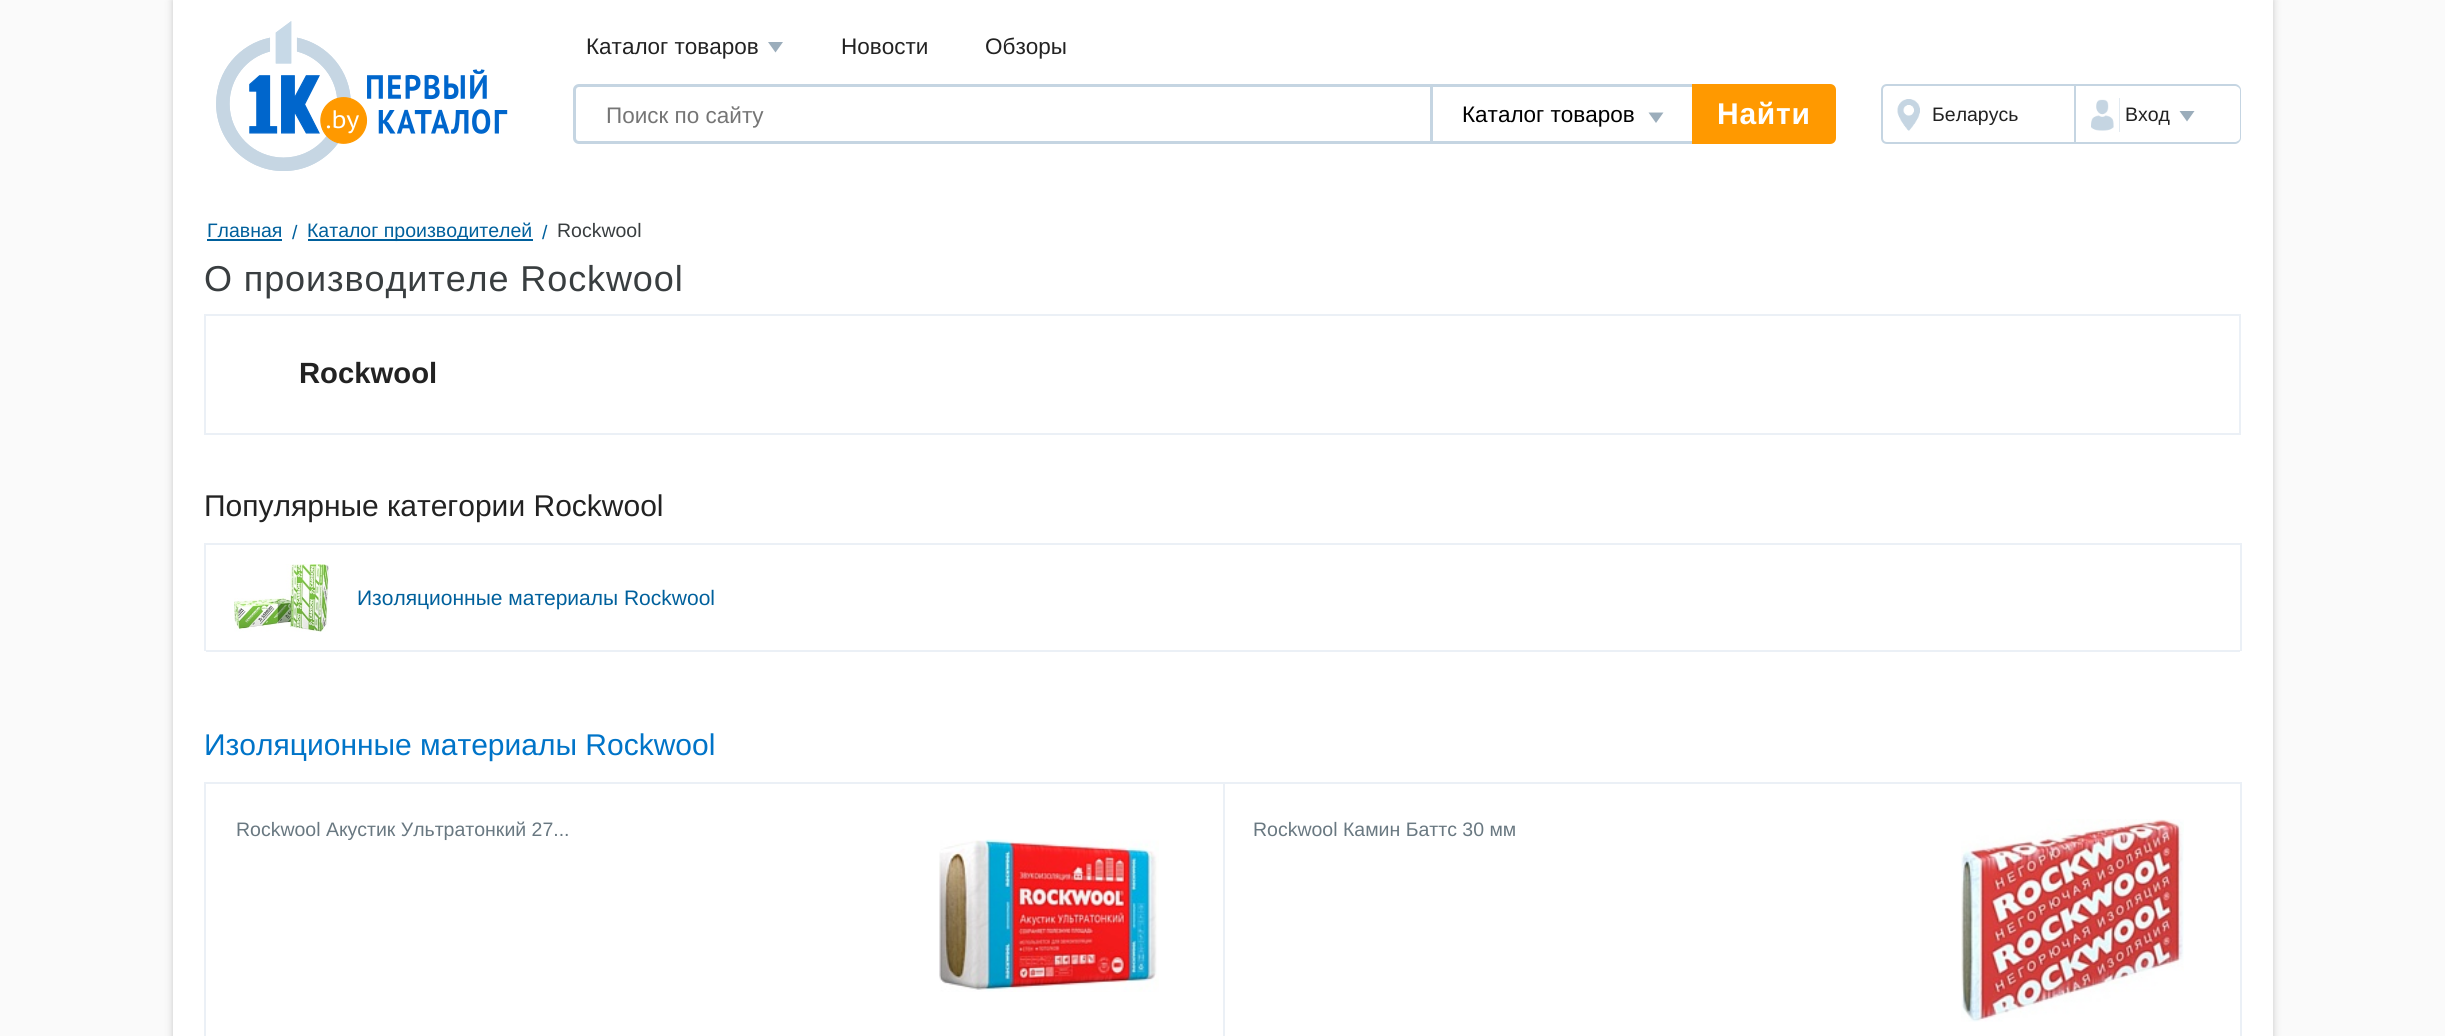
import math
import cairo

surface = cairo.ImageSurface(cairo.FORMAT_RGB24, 2445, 1036)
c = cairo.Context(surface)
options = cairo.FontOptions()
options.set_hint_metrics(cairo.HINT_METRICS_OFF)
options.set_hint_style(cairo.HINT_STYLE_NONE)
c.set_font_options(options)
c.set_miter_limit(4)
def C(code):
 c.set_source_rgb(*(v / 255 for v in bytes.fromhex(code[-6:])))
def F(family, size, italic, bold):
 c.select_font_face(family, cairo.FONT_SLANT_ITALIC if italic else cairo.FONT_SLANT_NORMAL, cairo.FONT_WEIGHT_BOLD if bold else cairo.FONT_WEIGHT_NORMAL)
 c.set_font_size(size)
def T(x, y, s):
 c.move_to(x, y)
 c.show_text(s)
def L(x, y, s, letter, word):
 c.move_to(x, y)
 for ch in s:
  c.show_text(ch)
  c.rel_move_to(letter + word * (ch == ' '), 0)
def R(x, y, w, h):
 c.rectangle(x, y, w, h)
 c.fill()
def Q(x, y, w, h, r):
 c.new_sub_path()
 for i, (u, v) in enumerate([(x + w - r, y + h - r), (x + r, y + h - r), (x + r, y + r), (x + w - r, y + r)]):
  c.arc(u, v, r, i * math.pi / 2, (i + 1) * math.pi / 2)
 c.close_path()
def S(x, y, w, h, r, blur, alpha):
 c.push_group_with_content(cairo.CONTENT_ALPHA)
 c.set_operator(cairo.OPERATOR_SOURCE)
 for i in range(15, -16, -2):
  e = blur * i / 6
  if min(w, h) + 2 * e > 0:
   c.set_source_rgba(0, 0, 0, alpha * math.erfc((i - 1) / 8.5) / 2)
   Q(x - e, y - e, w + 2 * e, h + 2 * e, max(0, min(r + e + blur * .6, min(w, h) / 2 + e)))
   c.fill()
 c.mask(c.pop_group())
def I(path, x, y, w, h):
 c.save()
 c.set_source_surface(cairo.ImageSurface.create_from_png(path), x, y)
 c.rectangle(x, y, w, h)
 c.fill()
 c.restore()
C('fafafa')
c.paint()
C('000000')
S(173,0,2100,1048,0,4,.2)
C('ffffff')
R(173,0,2100,1036)
I('1.png',216,21,292,150)
F('Liberation Sans',22.5,0,0)
C('222222')
T(586,54,'Каталог товаров')
C('9badbb')
c.new_path()
c.move_to(768,42)
c.line_to(783,42)
c.line_to(775.5,52.5)
c.close_path()
c.fill()
C('222222')
T(841,54,'Новости')
T(985,54,'Обзоры')
c.new_path()
c.move_to(579,85.5)
c.line_to(1431.5,85.5)
c.line_to(1431.5,142.5)
c.line_to(579,142.5)
c.curve_to(576.5,142.5,574.5,140.5,574.5,138)
c.line_to(574.5,90)
c.curve_to(574.5,87.5,576.5,85.5,579,85.5)
c.close_path()
C('c5d5e2')
c.set_line_width(3)
c.stroke()
C('757575')
T(606,123,'Поиск по сайту')
C('c5d5e2')
R(1433,84,259,3)
R(1433,141,259,3)
C('000000')
T(1462,122,'Каталог товаров')
C('9badbb')
c.new_path()
c.move_to(1648.5,112.5)
c.line_to(1663.5,112.5)
c.line_to(1656,123)
c.close_path()
c.fill()
C('ff9900')
c.new_path()
c.move_to(1692,84)
c.line_to(1830,84)
c.curve_to(1833.5,84,1836,86.5,1836,90)
c.line_to(1836,138)
c.curve_to(1836,141.5,1833.5,144,1830,144)
c.line_to(1692,144)
c.close_path()
c.fill()
F('Liberation Sans',30,0,1)
C('ffffff')
L(1717,124,'Найти',.75,0)
c.new_path()
c.move_to(1887,85)
c.line_to(2075,85)
c.line_to(2075,143)
c.line_to(1887,143)
c.curve_to(1884,143,1882,141,1882,138)
c.line_to(1882,90)
c.curve_to(1882,87,1884,85,1887,85)
c.close_path()
C('c5d5e2')
c.set_line_width(2)
c.stroke()
R(1897,99,23,32)
I('2.png',1892,98,34,34)
F('Liberation Sans',19.5,0,0)
C('222222')
T(1932,121,'Беларусь')
C('c5d5e2')
c.set_fill_rule(cairo.FILL_RULE_EVEN_ODD)
c.new_path()
c.move_to(2076,84)
c.line_to(2235,84)
c.curve_to(2238,84,2241,87,2241,90)
c.line_to(2241,138)
c.curve_to(2241,141,2238,144,2235,144)
c.line_to(2076,144)
c.close_path()
c.move_to(2076,86)
c.line_to(2235,86)
c.curve_to(2237,86,2240,88,2240,90)
c.line_to(2240,138)
c.curve_to(2240,140,2237,142,2235,142)
c.line_to(2076,142)
c.close_path()
c.fill()
R(2091,98,29,34)
I('3.png',2085,98,35,34)
C('222222')
T(2125,121,'Вход')
C('9badbb')
c.set_fill_rule(cairo.FILL_RULE_WINDING)
c.new_path()
c.move_to(2179.5,111)
c.line_to(2194.5,111)
c.line_to(2187,121.5)
c.close_path()
c.fill()
C('00609c')
T(207,237,'Главная')
R(207,239,75,2)
T(292,239,'/')
R(308,239,225,2)
T(307,237,'Каталог производителей')
T(542,239,'/')
C('393e40')
T(557,237,'Rockwool')
F('Liberation Sans',36,0,0)
L(204,291,'О производителе Rockwool',.9,0)
c.rectangle(205,315,2035,119)
C('ebf0f6')
c.stroke()
F('Liberation Sans',29.25,0,1)
C('222222')
T(299,383,'Rockwool')
F('Liberation Sans',30,0,0)
T(204,516,'Популярные категории Rockwool')
C('ebf0f6')
R(204,543,2037,2)
R(2240,543,2,108)
R(204,543,2,108)
R(206,650,2034,2)
I('4.png',234,564,95,68)
F('Liberation Sans',21,0,0)
C('00609c')
T(357,605,'Изоляционные материалы Rockwool')
F('Liberation Sans',30,0,0)
C('0074c8')
T(204,755,'Изоляционные материалы Rockwool')
C('ebf0f6')
R(204,782,2037,2)
R(2240,782,2,254)
R(204,782,2,254)
R(1223,783,2,253)
F('Liberation Sans',19.5,0,0)
C('697881')
T(236,836,'Rockwool Акустик Ультратонкий 27...')
I('5.png',939,839,220,153)
T(1253,836,'Rockwool Камин Баттс 30 мм')
I('6.png',1961,819,223,203)
surface.write_to_png('o.png')
